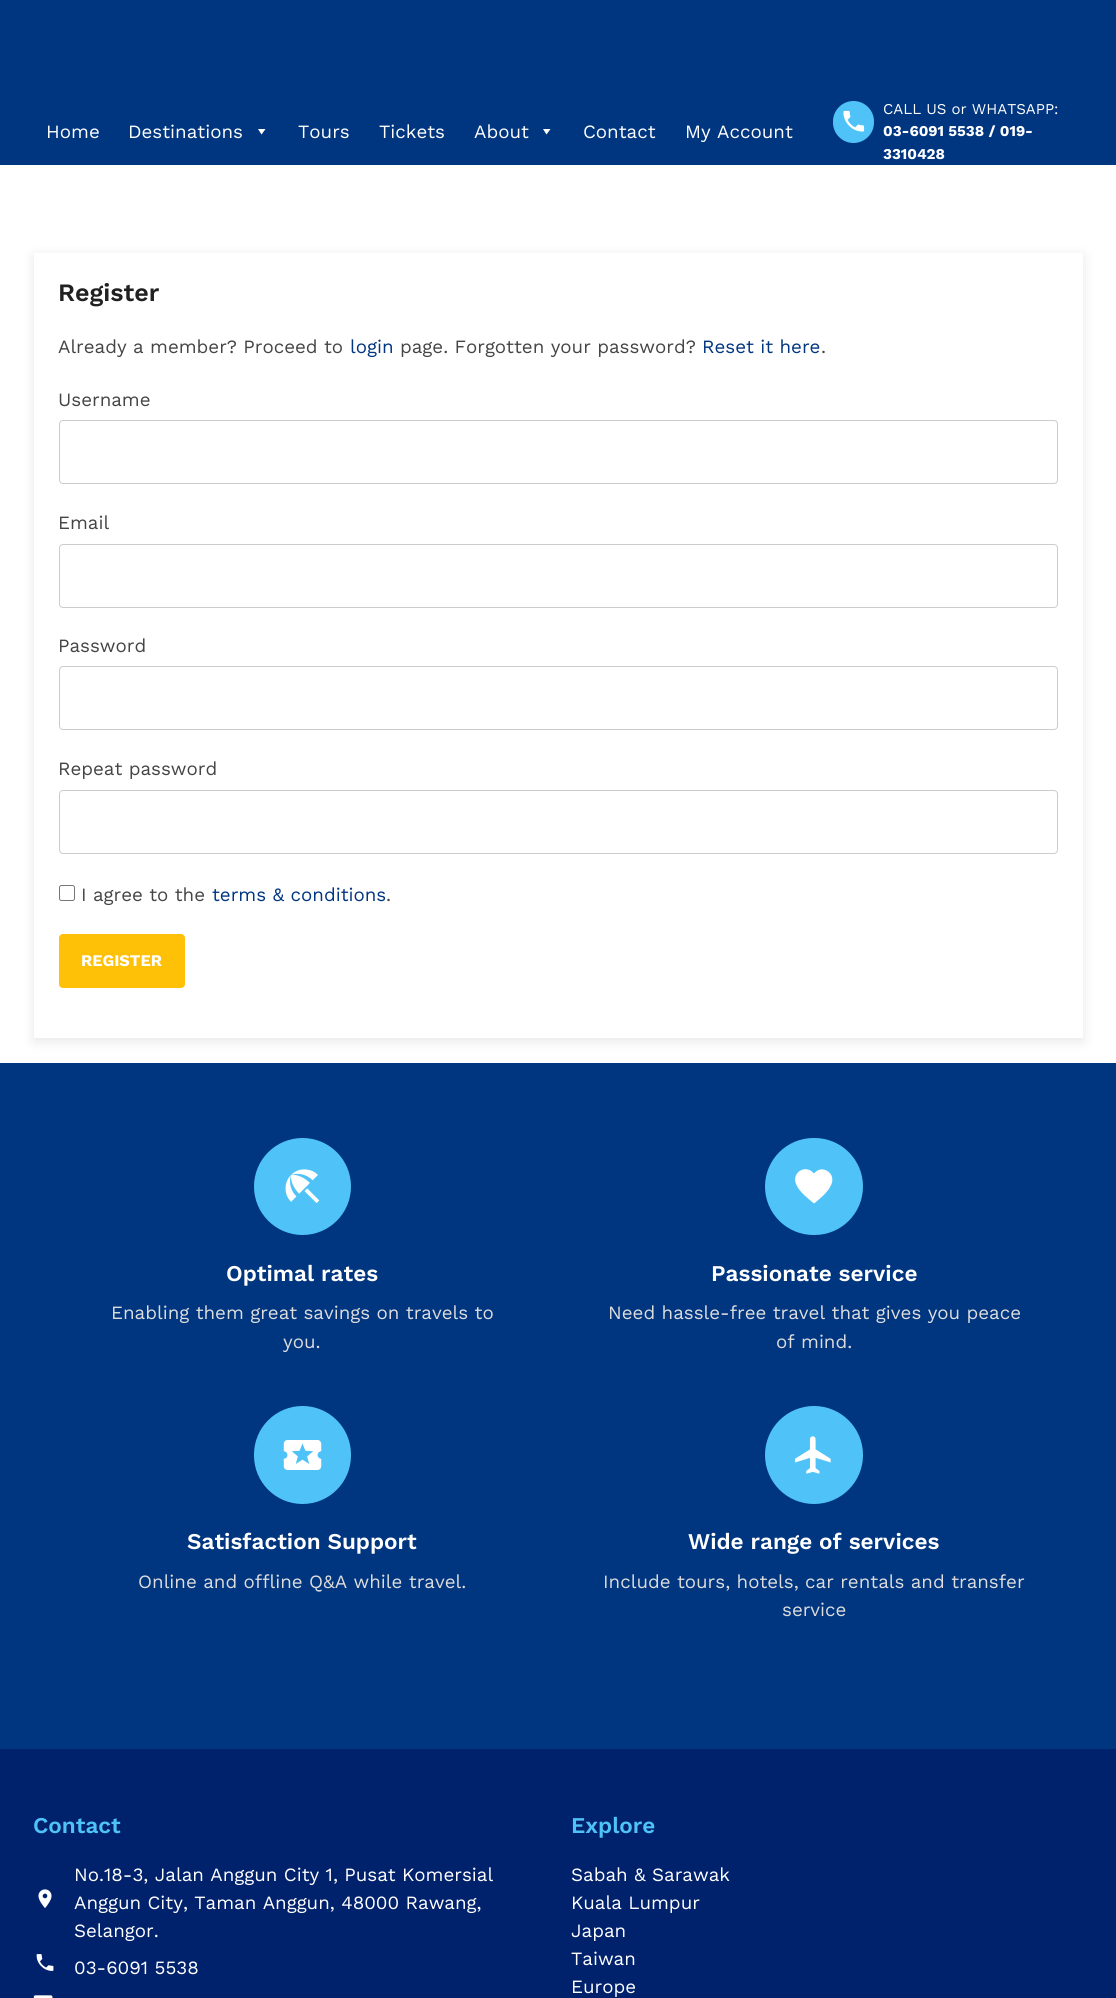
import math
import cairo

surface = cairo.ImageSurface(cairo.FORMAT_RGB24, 1116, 1998)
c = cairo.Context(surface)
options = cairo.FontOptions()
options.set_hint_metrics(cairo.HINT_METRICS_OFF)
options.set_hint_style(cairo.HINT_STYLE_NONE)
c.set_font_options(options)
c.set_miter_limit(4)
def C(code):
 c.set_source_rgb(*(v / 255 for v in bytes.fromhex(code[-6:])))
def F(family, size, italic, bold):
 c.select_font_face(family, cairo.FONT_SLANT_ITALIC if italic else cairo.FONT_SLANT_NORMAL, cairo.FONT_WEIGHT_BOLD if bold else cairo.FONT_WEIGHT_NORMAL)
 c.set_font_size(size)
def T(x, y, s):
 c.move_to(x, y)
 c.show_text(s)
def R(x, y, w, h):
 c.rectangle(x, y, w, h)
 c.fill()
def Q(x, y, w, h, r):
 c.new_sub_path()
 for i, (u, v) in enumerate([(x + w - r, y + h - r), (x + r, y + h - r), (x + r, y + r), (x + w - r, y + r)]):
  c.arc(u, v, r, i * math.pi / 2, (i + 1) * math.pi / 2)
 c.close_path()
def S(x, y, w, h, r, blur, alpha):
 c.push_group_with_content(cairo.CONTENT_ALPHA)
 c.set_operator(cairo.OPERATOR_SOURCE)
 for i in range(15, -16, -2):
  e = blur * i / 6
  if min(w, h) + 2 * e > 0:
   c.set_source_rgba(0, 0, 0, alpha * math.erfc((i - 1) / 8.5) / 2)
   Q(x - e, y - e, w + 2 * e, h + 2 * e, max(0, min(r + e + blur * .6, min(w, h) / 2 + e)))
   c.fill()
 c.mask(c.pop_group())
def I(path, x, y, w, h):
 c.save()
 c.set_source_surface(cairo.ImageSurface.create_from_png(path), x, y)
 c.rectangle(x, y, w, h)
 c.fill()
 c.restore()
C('ffffff')
c.paint()
C('003580')
R(0,0,1116,165)
F('Work Sans',18.75,0,0)
C('ffffff')
T(46,138,'Home')
T(128,138,'Destinations')
c.new_path()
c.move_to(265.5,129)
c.line_to(261.5,134.5)
c.line_to(258,129)
c.close_path()
c.fill()
T(298,138,'Tours')
T(379,138,'Tickets')
T(474,138,'About')
c.new_path()
c.move_to(550.5,129)
c.line_to(546.5,134.5)
c.line_to(543,129)
c.close_path()
c.fill()
T(583,138,'Contact')
T(685,138,'My Account')
C('4fc3f7')
Q(833,101,41,42,20.5)
c.fill()
I('1.png',843,110,22,22)
F('Work Sans',15,0,0)
C('ffffff')
T(883,114,'CALL US or WHATSAPP:')
F('Work Sans',15,0,1)
T(883,136,'03-6091 5538 / 019-')
T(883,159,'3310428')
C('000000')
S(34,256,1049,785,0,6,.1)
C('ffffff')
R(34,253,1049,785)
F('Work Sans SemiBold',25,0,0)
C('212121')
T(58,301,'Register')
F('Work Sans',18.75,0,0)
C('454545')
T(58,353,'Already a member? Proceed to')
C('003580')
T(350,353,'login')
C('454545')
T(400,353,'page. Forgotten your password?')
C('003580')
T(702,353,'Reset it here')
C('454545')
T(821,353,'.')
T(58,406,'Username')
Q(59.5,420.5,998,63,3.5)
C('cccccc')
c.set_line_width(1)
c.stroke()
C('454545')
T(58,529,'Email')
Q(59.5,544.5,998,63,3.5)
C('cccccc')
c.stroke()
C('454545')
T(58,652,'Password')
Q(59.5,666.5,998,63,3.5)
C('cccccc')
c.stroke()
C('454545')
T(58,775,'Repeat password')
Q(59.5,790.5,998,63,3.5)
C('cccccc')
c.stroke()
Q(59.5,885.5,15,15,2)
C('767676')
c.stroke()
C('454545')
T(81,901,'I agree to the')
C('003580')
T(212,901,'terms & conditions')
C('454545')
T(386,901,'.')
C('ffc107')
Q(59,934,126,54,4)
c.fill()
F('Work Sans',16.25,0,1)
C('ffffff')
T(81,966,'REGISTER')
C('003580')
R(0,1063,1116,686)
C('4fc3f7')
c.new_path()
c.arc(302.5,1186.5,48.5,0,2 * math.pi)
c.fill()
I('2.png',285,1169,35,34)
F('Work Sans SemiBold',22.5,0,0)
C('ffffff')
T(226,1281,'Optimal rates')
F('Work Sans',18.75,0,0)
C('dddddd')
T(111,1319,'Enabling them great savings on travels to')
T(283,1348,'you.')
C('4fc3f7')
Q(765,1138,98,97,48.5)
c.fill()
C('ffffff')
c.new_path()
c.move_to(814,1203.5)
c.curve_to(808.5,1199,799.5,1192,796.5,1185)
c.curve_to(790.5,1173.5,805,1163,814,1173.5)
c.curve_to(821.5,1164,836,1172.5,831.5,1184)
c.curve_to(828.5,1192,820,1198.5,814,1203.5)
c.close_path()
c.fill()
F('Work Sans SemiBold',22.5,0,0)
T(711,1281,'Passionate service')
F('Work Sans',18.75,0,0)
C('dddddd')
T(608,1319,'Need hassle-free travel that gives you peace')
T(776,1348,'of mind.')
C('4fc3f7')
Q(254,1406,97,98,48.5)
c.fill()
I('3.png',283,1440,39,30)
F('Work Sans SemiBold',22.5,0,0)
C('ffffff')
T(187,1549,'Satisfaction Support')
F('Work Sans',18.75,0,0)
C('dddddd')
T(138,1588,'Online and offline Q&A while travel.')
C('4fc3f7')
c.new_path()
c.arc(814,1455,49,0,2 * math.pi)
c.fill()
I('4.png',795,1436,36,38)
F('Work Sans SemiBold',22.5,0,0)
C('ffffff')
T(688,1549,'Wide range of services')
F('Work Sans',18.75,0,0)
C('dddddd')
T(603,1588,'Include tours, hotels, car rentals and transfer')
T(782,1616,'service')
C('00216c')
R(0,1749,1116,249)
F('Work Sans SemiBold',22.5,0,0)
C('4fc3f7')
T(33,1833,'Contact')
I('5.png',38,1889,14,19)
F('Work Sans',18.75,0,0)
C('ffffff')
T(74,1881,'No.18-3, Jalan Anggun City 1, Pusat Komersial')
T(74,1909,'Anggun City, Taman Anggun, 48000 Rawang,')
T(74,1937,'Selangor.')
I('6.png',36,1954,18,17)
T(74,1974,'03-6091 5538')
I('7.png',33,1995,20,3)
F('Work Sans SemiBold',22.5,0,0)
C('4fc3f7')
T(571,1833,'Explore')
F('Work Sans',18.75,0,0)
C('ffffff')
T(571,1881,'Sabah & Sarawak')
T(571,1909,'Kuala Lumpur')
T(571,1937,'Japan')
T(571,1965,'Taiwan')
T(571,1993,'Europe')
surface.write_to_png('o.png')
